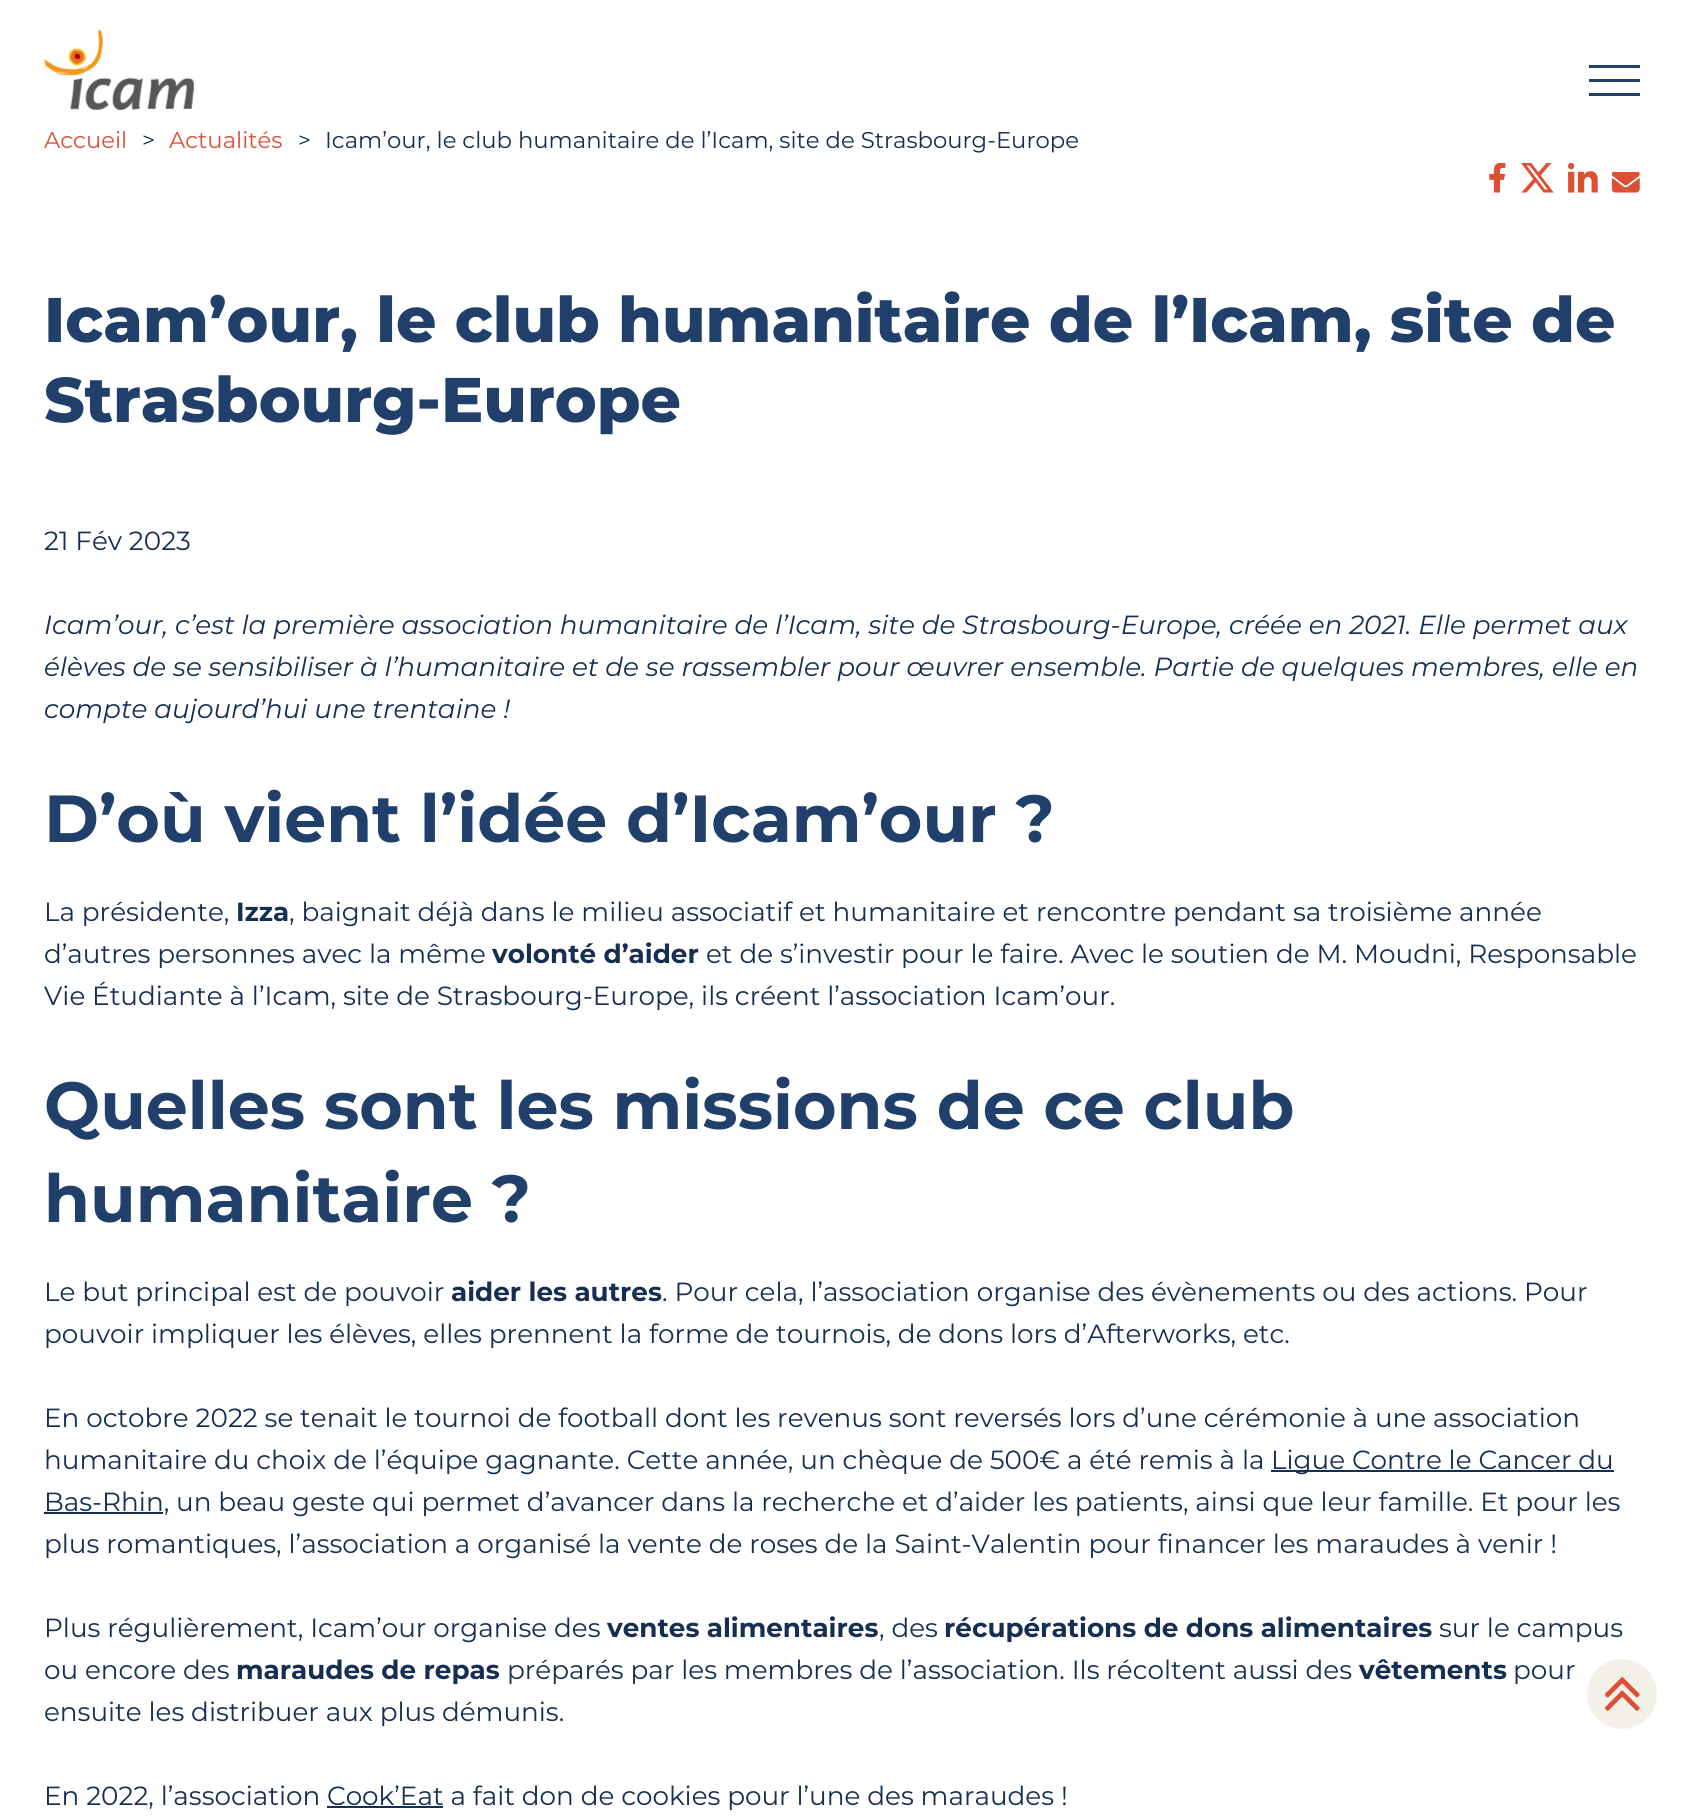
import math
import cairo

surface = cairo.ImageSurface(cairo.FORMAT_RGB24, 1683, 1816)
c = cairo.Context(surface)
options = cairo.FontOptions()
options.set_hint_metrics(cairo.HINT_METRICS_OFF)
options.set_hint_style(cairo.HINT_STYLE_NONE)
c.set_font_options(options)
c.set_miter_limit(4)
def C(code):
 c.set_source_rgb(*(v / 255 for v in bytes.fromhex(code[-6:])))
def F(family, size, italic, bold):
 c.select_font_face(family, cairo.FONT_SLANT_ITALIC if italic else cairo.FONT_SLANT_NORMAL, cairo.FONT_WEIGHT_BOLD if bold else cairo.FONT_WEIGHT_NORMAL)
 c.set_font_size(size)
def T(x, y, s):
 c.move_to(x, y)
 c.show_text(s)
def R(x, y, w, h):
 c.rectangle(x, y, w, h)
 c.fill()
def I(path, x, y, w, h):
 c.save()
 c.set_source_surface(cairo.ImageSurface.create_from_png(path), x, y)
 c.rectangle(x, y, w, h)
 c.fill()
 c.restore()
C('ffffff')
c.paint()
I('1.png',43,29,151,82)
C('203f6a')
c.new_path()
c.move_to(1589,65)
c.line_to(1640,65)
c.line_to(1640,68)
c.line_to(1589,68)
c.close_path()
c.move_to(1589,79)
c.line_to(1640,79)
c.line_to(1640,82)
c.line_to(1589,82)
c.close_path()
c.move_to(1589,93)
c.line_to(1640,93)
c.line_to(1640,96)
c.line_to(1589,96)
c.close_path()
c.fill()
F('Montserrat',22.75,0,0)
C('dd5034')
T(44,148,'Accueil')
C('152e51')
T(142,148,'>')
C('dd5034')
T(169,148,'Actualités')
C('152e51')
T(298,148,'>')
T(325,148,'Icam’our, le club humanitaire de l’Icam, site de Strasbourg-Europe')
I('2.png',1489,163,17,30)
I('3.png',1521,163,33,30)
I('4.png',1568,163,30,30)
I('5.png',1612,172,28,21)
F('Montserrat ExtraBold',63,0,0)
C('203f6a')
T(44,342,'Icam’our, le club humanitaire de l’Icam, site de')
T(44,422,'Strasbourg-Europe')
F('Montserrat',26.25,0,0)
C('152e51')
T(44,550,'21 Fév 2023')
F('Montserrat',26.25,1,0)
T(44,634,'Icam’our, c’est la première association humanitaire de l’Icam, site de Strasbourg-Europe, créée en 2021. Elle permet aux')
T(44,676,'élèves de se sensibiliser à l’humanitaire et de se rassembler pour œuvrer ensemble. Partie de quelques membres, elle en')
T(44,718,'compte aujourd’hui une trentaine !')
F('Montserrat',66.5,0,1)
C('203f6a')
T(44,842,'D’où vient l’idée d’Icam’our ?')
F('Montserrat',26.25,0,0)
C('152e51')
T(44,921,'La présidente,')
F('Montserrat',26.25,0,1)
T(236,921,'Izza')
F('Montserrat',26.25,0,0)
T(289,921,', baignait déjà dans le milieu associatif et humanitaire et rencontre pendant sa troisième année')
T(44,963,'d’autres personnes avec la même')
F('Montserrat',26.25,0,1)
T(492,963,'volonté d’aider')
F('Montserrat',26.25,0,0)
T(706,963,'et de s’investir pour le faire. Avec le soutien de M. Moudni, Responsable')
T(44,1005,'Vie Étudiante à l’Icam, site de Strasbourg-Europe, ils créent l’association Icam’our.')
F('Montserrat',66.5,0,1)
C('203f6a')
T(44,1129,'Quelles sont les missions de ce club')
T(44,1222,'humanitaire ?')
F('Montserrat',26.25,0,0)
C('152e51')
T(44,1301,'Le but principal est de pouvoir')
F('Montserrat',26.25,0,1)
T(451,1301,'aider les autres')
F('Montserrat',26.25,0,0)
T(662,1301,'. Pour cela, l’association organise des évènements ou des actions. Pour')
T(44,1343,'pouvoir impliquer les élèves, elles prennent la forme de tournois, de dons lors d’Afterworks, etc.')
T(44,1427,'En octobre 2022 se tenait le tournoi de football dont les revenus sont reversés lors d’une cérémonie à une association')
T(44,1469,'humanitaire du choix de l’équipe gagnante. Cette année, un chèque de 500€ a été remis à la')
R(1271,1470,343,2)
T(1271,1469,'Ligue Contre le Cancer du')
R(44,1512,119,2)
T(44,1511,'Bas-Rhin, un beau geste qui permet d’avancer dans la recherche et d’aider les patients, ainsi que leur famille. Et pour les')
T(44,1553,'plus romantiques, l’association a organisé la vente de roses de la Saint-Valentin pour financer les maraudes à venir !')
T(44,1637,'Plus régulièrement, Icam’our organise des')
F('Montserrat',26.25,0,1)
T(607,1637,'ventes alimentaires')
F('Montserrat',26.25,0,0)
T(879,1637,', des')
F('Montserrat',26.25,0,1)
T(944,1637,'récupérations de dons alimentaires')
F('Montserrat',26.25,0,0)
T(1439,1637,'sur le campus')
T(44,1679,'ou encore des')
F('Montserrat',26.25,0,1)
T(236,1679,'maraudes de repas')
F('Montserrat',26.25,0,0)
T(507,1679,'préparés par les membres de l’association. Ils récoltent aussi des')
F('Montserrat',26.25,0,1)
T(1359,1679,'vêtements')
F('Montserrat',26.25,0,0)
T(1513,1679,'pour')
T(44,1721,'ensuite les distribuer aux plus démunis.')
T(44,1805,'En 2022, l’association Cook’Eat a fait don de cookies pour l’une des maraudes !')
R(327,1806,116,2)
C('f3f0ea')
c.new_path()
c.arc(1622,1694,35,0,2 * math.pi)
c.fill()
I('6.png',1605,1677,35,34)
surface.write_to_png('o.png')
